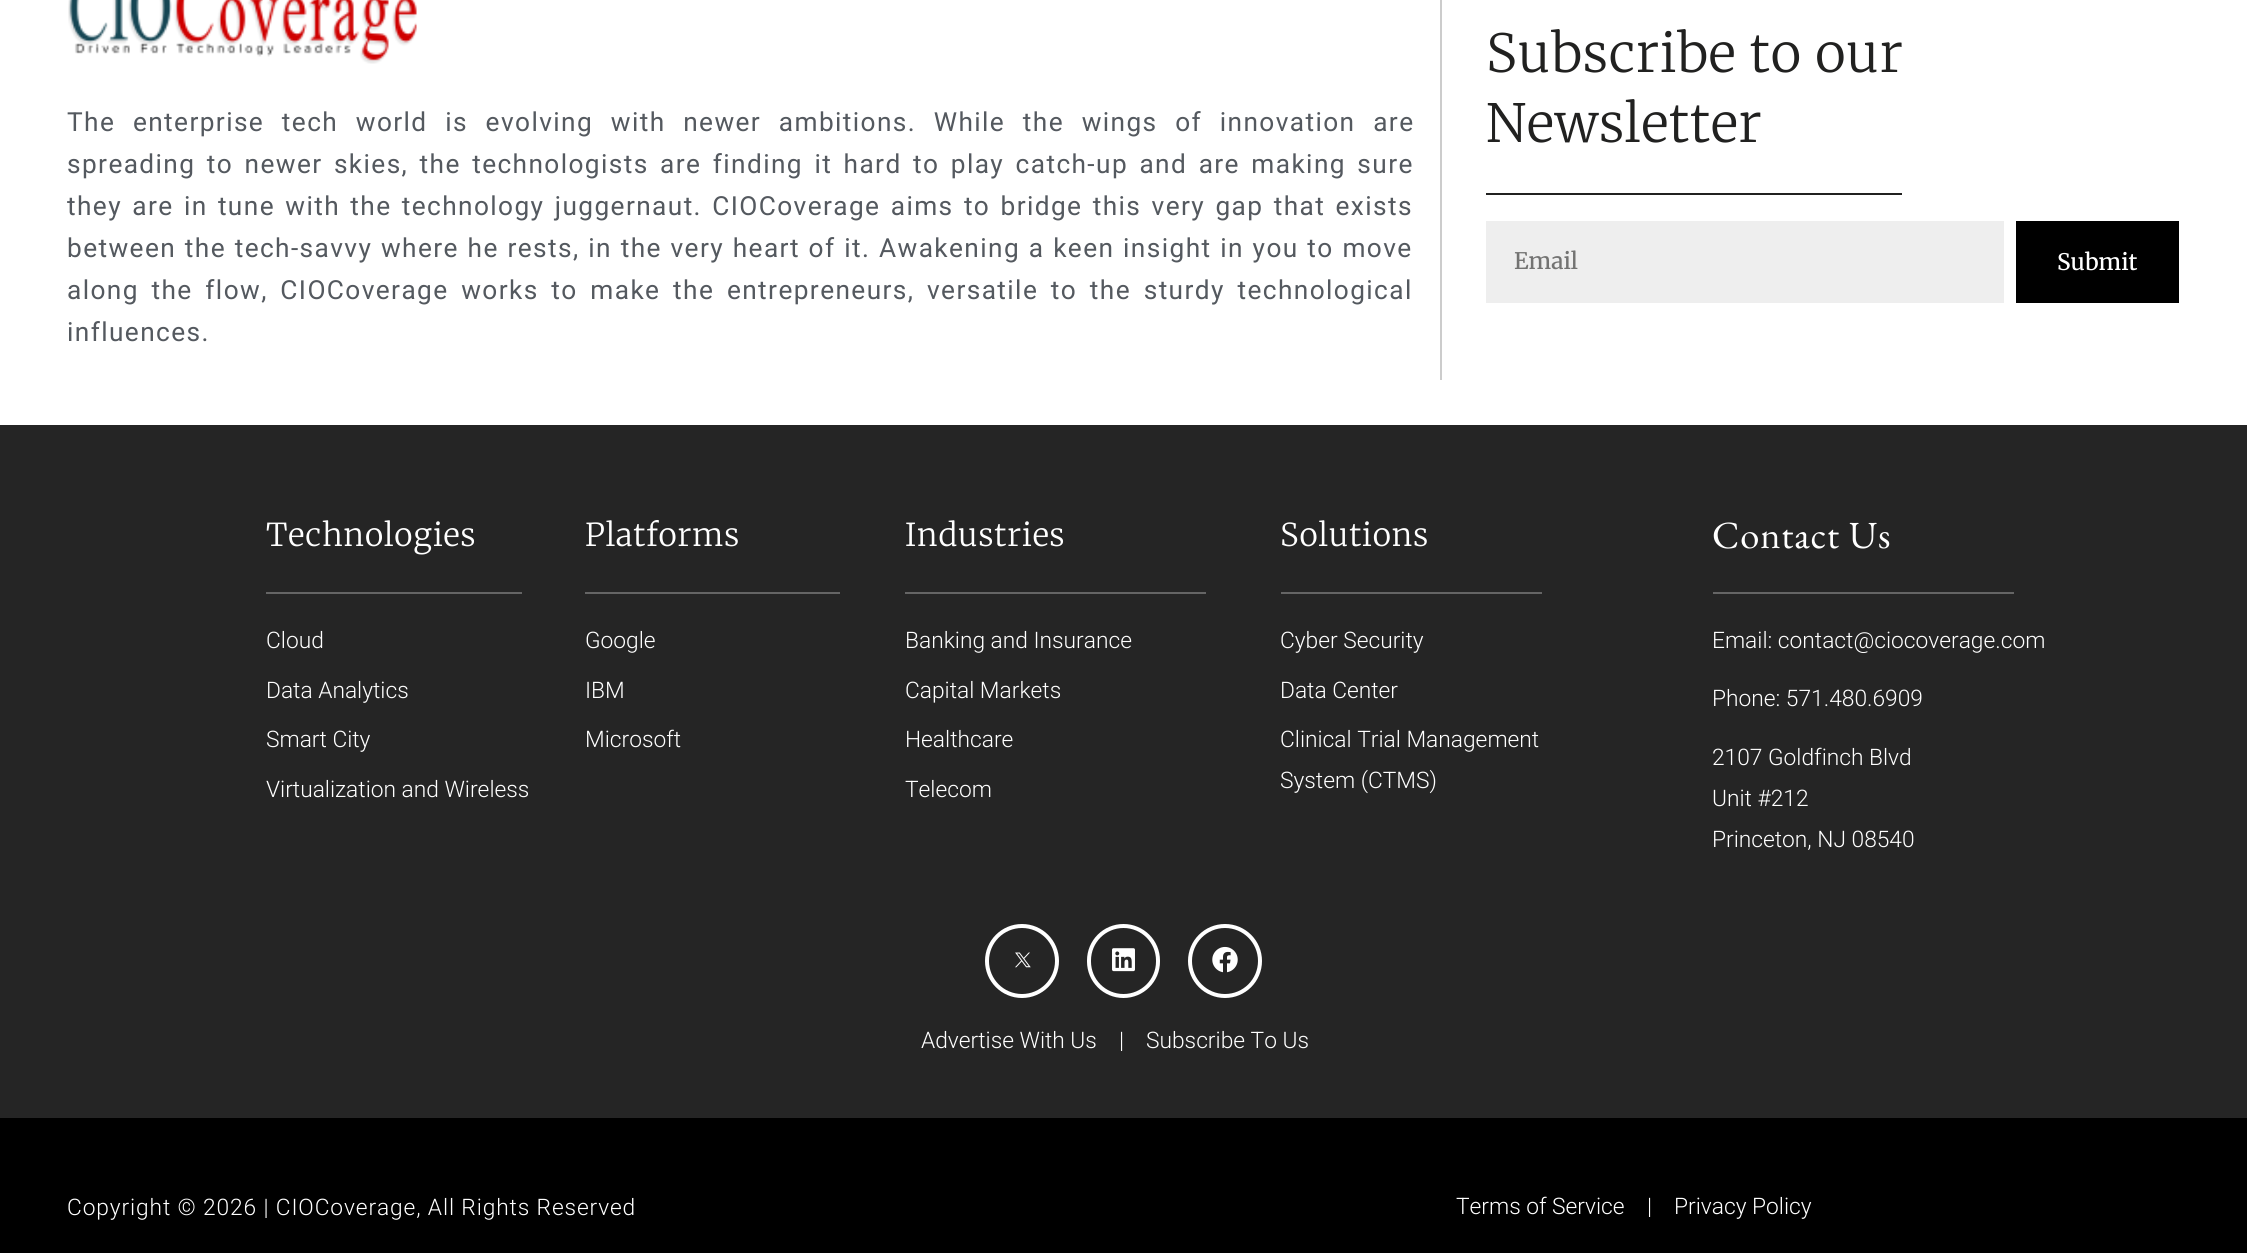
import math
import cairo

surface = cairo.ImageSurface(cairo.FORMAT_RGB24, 2247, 1253)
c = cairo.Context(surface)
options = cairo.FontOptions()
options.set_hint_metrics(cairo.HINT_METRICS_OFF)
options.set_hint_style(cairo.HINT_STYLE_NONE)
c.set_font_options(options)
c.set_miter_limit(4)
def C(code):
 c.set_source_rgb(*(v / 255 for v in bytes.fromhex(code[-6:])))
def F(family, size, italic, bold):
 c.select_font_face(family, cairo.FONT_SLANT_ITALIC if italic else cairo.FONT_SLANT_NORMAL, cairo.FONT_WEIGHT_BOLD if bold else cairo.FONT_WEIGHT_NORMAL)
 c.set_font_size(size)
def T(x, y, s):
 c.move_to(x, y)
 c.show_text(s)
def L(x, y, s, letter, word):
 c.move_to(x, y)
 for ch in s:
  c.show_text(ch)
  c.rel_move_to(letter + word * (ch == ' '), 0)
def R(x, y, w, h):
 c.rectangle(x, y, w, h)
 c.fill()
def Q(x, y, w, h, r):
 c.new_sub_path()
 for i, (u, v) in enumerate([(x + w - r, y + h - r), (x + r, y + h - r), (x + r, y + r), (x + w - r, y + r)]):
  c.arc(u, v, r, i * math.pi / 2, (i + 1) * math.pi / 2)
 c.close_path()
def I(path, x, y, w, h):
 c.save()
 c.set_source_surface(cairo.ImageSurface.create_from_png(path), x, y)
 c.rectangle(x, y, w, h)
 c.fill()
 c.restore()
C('ffffff')
c.paint()
I('1.png',68,0,349,64)
F('Roboto',26.25,0,0)
C('54595f')
L(67,131,'The enterprise tech world is evolving with newer ambitions. While the wings of innovation are',1.4,9.75)
L(67,173,'spreading to newer skies, the technologists are finding it hard to play catch-up and are making sure',1.4,3.5)
L(67,215,'they are in tune with the technology juggernaut. CIOCoverage aims to bridge this very gap that exists',1.4,2.4)
L(67,257,'between the tech-savvy where he rests, in the very heart of it. Awakening a keen insight in you to move',1.4,.8)
L(67,299,'along the flow, CIOCoverage works to make the entrepreneurs, versatile to the sturdy technological',1.4,4.75)
L(67,341,'influences.',1.4,0)
C('cccccc')
R(1440,0,2,380)
F('Merriweather Light',52.5,0,0)
C('212120')
L(1486,72,'Subscribe to our',.88,0)
L(1486,142,'Newsletter',.88,0)
R(1486,193,416,2)
C('eeeeee')
R(1486,221,518,82)
F('Merriweather Medium',22.75,0,0)
C('737372')
T(1514,269,'Email')
C('000000')
R(2016,221,163,82)
C('ffffff')
T(2057,270,'Submit')
C('252525')
R(0,425,2247,693)
F('Merriweather Light',31.5,0,0)
C('ffffff')
L(266,546,'Technologies',.88,0)
C('656565')
R(266,592,256,2)
F('Roboto Light',22.75,0,0)
C('ffffff')
T(266,648,'Cloud')
T(266,698,'Data Analytics')
T(266,747,'Smart City')
T(266,797,'Virtualization and Wireless')
F('Merriweather Light',31.5,0,0)
L(585,546,'Platforms',.88,0)
C('656565')
R(585,592,255,2)
F('Roboto Light',22.75,0,0)
C('ffffff')
T(585,648,'Google')
T(585,698,'IBM')
T(585,747,'Microsoft')
F('Merriweather Light',31.5,0,0)
L(905,546,'Industries',.88,0)
C('656565')
R(905,592,301,2)
F('Roboto Light',22.75,0,0)
C('ffffff')
T(905,648,'Banking and Insurance')
T(905,698,'Capital Markets')
T(905,747,'Healthcare')
T(905,797,'Telecom')
F('Merriweather Light',31.5,0,0)
L(1280,546,'Solutions',.88,0)
C('656565')
R(1281,592,261,2)
F('Roboto Light',22.75,0,0)
C('ffffff')
T(1280,648,'Cyber Security')
T(1280,698,'Data Center')
T(1280,747,'Clinical Trial Management')
T(1280,788,'System (CTMS)')
F('EB Garamond',38.5,0,0)
L(1712,548,'Contact Us',.88,0)
C('656565')
R(1713,592,301,2)
F('Roboto Light',22.75,0,0)
C('ffffff')
T(1712,648,'Email: contact@ciocoverage.com')
T(1712,706,'Phone: 571.480.6909')
T(1712,765,'2107 Goldfinch Blvd')
T(1712,806,'Unit #212')
T(1712,847,'Princeton, NJ 08540')
c.new_path()
c.arc(1022,961,35,0,2 * math.pi)
c.set_line_width(4)
c.stroke()
I('2.png',1015,952,16,16)
Q(1089,926,69,70,34.5)
c.stroke()
I('3.png',1112,948,23,24)
c.arc(1225,961,35,0,2 * math.pi)
c.stroke()
I('4.png',1212,946,26,27)
T(921,1048,'Advertise With Us')
T(1119,1048,'|')
T(1146,1048,'Subscribe To Us')
C('000000')
R(0,1118,2247,135)
C('ffffff')
L(67,1215,'Copyright © 2026 | CIOCoverage, All Rights Reserved',.88,0)
T(1456,1214,'Terms of Service')
T(1647,1214,'|')
T(1674,1214,'Privacy Policy')
surface.write_to_png('o.png')
